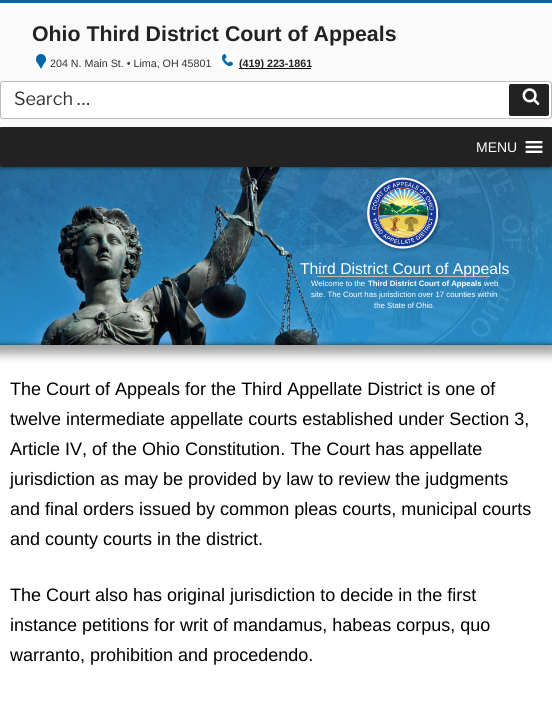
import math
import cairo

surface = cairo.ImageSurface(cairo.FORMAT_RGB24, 552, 705)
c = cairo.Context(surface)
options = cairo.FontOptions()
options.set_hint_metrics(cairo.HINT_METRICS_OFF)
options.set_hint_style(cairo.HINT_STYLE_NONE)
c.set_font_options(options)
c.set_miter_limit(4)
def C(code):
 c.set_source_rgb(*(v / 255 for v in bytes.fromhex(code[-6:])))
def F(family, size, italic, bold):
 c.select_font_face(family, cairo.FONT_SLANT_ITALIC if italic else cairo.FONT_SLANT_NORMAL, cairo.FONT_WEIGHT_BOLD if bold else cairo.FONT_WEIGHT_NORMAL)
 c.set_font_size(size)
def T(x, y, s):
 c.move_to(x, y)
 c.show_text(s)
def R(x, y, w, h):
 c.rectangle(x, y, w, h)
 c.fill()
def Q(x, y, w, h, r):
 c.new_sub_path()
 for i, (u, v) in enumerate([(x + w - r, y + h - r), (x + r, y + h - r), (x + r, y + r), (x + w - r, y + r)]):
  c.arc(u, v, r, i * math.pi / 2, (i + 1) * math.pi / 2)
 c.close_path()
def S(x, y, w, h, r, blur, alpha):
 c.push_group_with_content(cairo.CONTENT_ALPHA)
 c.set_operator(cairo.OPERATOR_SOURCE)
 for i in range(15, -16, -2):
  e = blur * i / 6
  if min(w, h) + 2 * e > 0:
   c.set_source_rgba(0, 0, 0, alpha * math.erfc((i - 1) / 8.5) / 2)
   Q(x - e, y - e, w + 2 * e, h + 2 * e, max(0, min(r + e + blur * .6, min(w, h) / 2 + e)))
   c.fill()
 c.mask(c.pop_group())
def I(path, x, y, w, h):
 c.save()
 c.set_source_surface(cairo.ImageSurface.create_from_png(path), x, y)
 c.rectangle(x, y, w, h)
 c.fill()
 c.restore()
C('ffffff')
c.paint()
C('fafafa')
R(0,3,552,124)
C('0164a7')
R(0,0,552,3)
F('Liberation Sans',21.3,0,1)
C('222222')
T(32,41,'Ohio Third District Court of Appeals')
I('1.png',35,54,12,15)
F('Liberation Sans',10.7,0,0)
C('333333')
T(50,67,'204 N. Main St. • Lima, OH 45801')
I('2.png',219,51,17,18)
C('0f0f0f')
R(239,68,72,1)
F('Liberation Sans',10.7,0,1)
C('222222')
T(239,67,'(419) 223-1861')
C('ffffff')
Q(.5,81.5,551,37,2.5)
c.fill_preserve()
C('bbbbbb')
c.set_line_width(1)
c.stroke()
F('Libre Franklin',18,0,0)
C('333333')
T(14,105,'Search …')
C('222222')
Q(509,84,40,32,2)
c.fill()
I('3.png',522,88,18,17)
C('0164a7')
R(0,127,552,40)
C('222222')
Q(0,127,552,40,2)
c.fill()
F('Liberation Sans',14,0,0)
C('ffffff')
T(476,152,'MENU')
I('4.png',525,141,18,12)
c.save()
c.rectangle(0,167,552,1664)
c.clip()
C('a4a4a4')
S(-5,166,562,188,0,5,1)
c.restore()
I('5.png',0,167,552,178)
F('Liberation Sans',15.7,0,0)
T(300,274,'Third District Court of Appeals')
C('bbbbbb')
R(317,276,173,1)
F('Liberation Sans',7.8,0,0)
C('ffffff')
T(311,286,'Welcome to the')
F('Liberation Sans',7.8,0,1)
T(368,286,'Third District Court of Appeals')
F('Liberation Sans',7.8,0,0)
T(484,286,'web')
T(311,297,'site. The Court has jurisdiction over 17 counties within')
T(374,308,'the State of Ohio.')
F('Liberation Sans',18,0,0)
C('000000')
T(10,395,'The Court of Appeals for the Third Appellate District is one of')
T(10,425,'twelve intermediate appellate courts established under Section 3,')
T(10,455,'Article IV, of the Ohio Constitution. The Court has appellate')
T(10,485,'jurisdiction as may be provided by law to review the judgments')
T(10,515,'and final orders issued by common pleas courts, municipal courts')
T(10,545,'and county courts in the district.')
T(10,601,'The Court also has original jurisdiction to decide in the first')
T(10,631,'instance petitions for writ of mandamus, habeas corpus, quo')
T(10,661,'warranto, prohibition and procedendo.')
surface.write_to_png('o.png')
